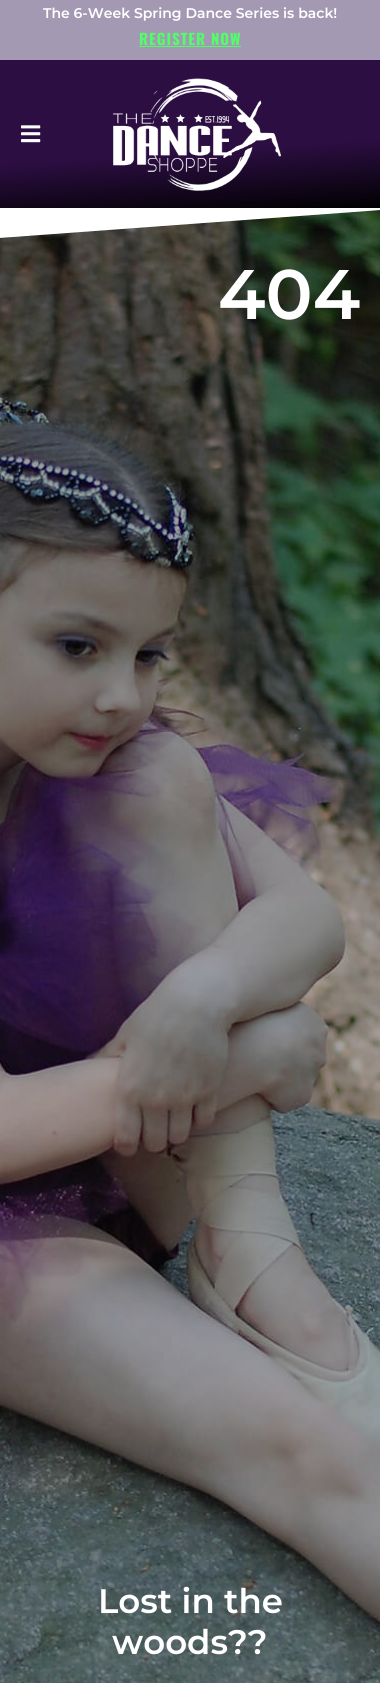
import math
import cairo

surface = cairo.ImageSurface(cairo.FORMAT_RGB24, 380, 1683)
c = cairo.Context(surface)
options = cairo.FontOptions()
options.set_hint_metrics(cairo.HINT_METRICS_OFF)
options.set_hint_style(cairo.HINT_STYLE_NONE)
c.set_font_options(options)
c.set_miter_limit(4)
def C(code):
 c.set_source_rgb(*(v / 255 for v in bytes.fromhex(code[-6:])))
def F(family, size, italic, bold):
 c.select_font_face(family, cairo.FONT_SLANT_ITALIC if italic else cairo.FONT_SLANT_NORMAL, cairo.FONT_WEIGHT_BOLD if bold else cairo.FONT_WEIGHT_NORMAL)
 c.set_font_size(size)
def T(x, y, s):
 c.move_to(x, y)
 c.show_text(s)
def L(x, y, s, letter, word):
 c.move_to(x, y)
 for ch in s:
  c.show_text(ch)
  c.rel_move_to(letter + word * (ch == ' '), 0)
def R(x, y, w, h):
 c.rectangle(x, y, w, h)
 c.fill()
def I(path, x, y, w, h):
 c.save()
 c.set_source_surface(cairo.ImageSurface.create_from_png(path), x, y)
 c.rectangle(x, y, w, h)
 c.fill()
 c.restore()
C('a499b3')
c.paint()
F('Montserrat SemiBold',14,0,0)
C('ffffff')
T(43,18,'The 6-Week Spring Dance Series is back!')
F('Oswald',15,0,1)
C('50ff68')
L(139,45,'REGISTER NOW',1,0)
R(139,46,102,1)
gradient = cairo.LinearGradient(184,47,196,222)
gradient.add_color_stop_rgba(.6,0.173,0.055,0.259,1)
gradient.add_color_stop_rgba(1,0,0,0,1)
c.set_source(gradient)
R(0,60,380,148)
I('1.png',21,125,20,18)
I('2.png',113,78,168,113)
I('3.png',0,210,380,1473)
C('ffffff')
c.new_path()
c.move_to(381,210)
c.line_to(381,208)
c.line_to(-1,208)
c.line_to(-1,238)
c.close_path()
c.fill()
F('Montserrat SemiBold',70,0,0)
T(218,319,'404')
F('Montserrat SemiBold',34,0,0)
T(98,1613,'Lost in the')
T(112,1654,'woods??')
surface.write_to_png('o.png')
